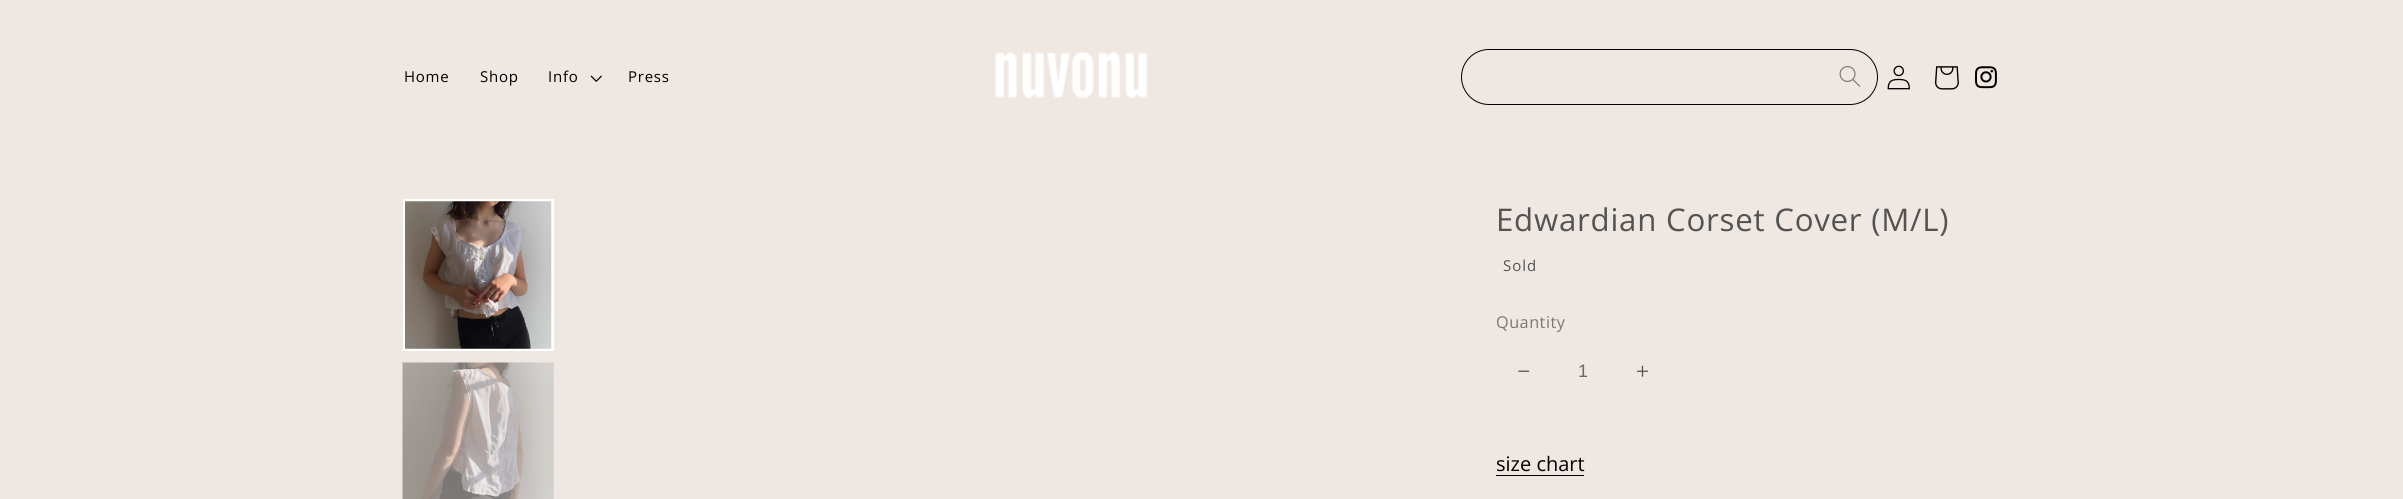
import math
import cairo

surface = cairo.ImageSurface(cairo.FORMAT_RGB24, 2403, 499)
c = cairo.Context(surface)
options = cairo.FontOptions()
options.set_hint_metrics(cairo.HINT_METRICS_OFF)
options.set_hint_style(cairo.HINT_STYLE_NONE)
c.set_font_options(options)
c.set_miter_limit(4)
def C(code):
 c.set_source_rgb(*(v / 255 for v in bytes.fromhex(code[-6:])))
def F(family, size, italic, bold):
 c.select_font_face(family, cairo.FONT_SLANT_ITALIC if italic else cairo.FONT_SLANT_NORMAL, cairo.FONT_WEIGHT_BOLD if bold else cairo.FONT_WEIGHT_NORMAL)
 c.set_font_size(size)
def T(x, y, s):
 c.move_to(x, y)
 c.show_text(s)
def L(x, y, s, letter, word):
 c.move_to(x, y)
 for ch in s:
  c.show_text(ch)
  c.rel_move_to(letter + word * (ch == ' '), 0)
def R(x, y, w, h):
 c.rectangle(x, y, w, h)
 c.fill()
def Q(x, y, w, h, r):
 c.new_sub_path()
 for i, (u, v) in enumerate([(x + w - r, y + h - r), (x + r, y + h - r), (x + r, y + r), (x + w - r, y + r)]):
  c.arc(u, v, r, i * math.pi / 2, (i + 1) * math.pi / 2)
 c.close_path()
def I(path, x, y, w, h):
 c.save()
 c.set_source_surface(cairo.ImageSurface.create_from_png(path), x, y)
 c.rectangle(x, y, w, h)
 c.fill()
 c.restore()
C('efe7e2')
c.paint()
F('Open Sans',15,0,0)
C('000000')
L(404,82,'Home',.75,0)
L(480,82,'Shop',.75,0)
L(548,82,'Info',.75,0)
I('1.png',590,75,12,7)
L(628,82,'Press',.75,0)
I('2.png',995,52,153,47)
Q(1461.5,49.5,416,55,27.5)
c.set_line_width(1)
c.stroke()
I('3.png',1839,66,22,21)
I('4.png',1887,65,23,25)
I('5.png',1935,66,24,24)
I('6.png',1975,66,22,23)
c.rectangle(404.5,200.5,148,149)
C('ffffff')
c.set_line_width(3)
c.stroke()
I('7.png',405,201,147,148)
I('8.png',402,362,152,137)
F('Open Sans',31.25,0,0)
C('535353')
L(1496,231,'Edwardian Corset Cover (M/L)',.75,0)
F('Open Sans',15,0,0)
L(1503,271,'Sold',1,0)
F('Open Sans',16.25,0,0)
C('7a7877')
L(1496,328,'Quantity',.5,0)
I('9.png',1518,370,12,2)
F('Liberation Sans',18,0,0)
C('6a6968')
T(1578,377,'1')
I('10.png',1636,365,13,12)
F('Open Sans',20,0,0)
C('000000')
T(1496,471,'size chart')
R(1496,475,88,1)
surface.write_to_png('o.png')
